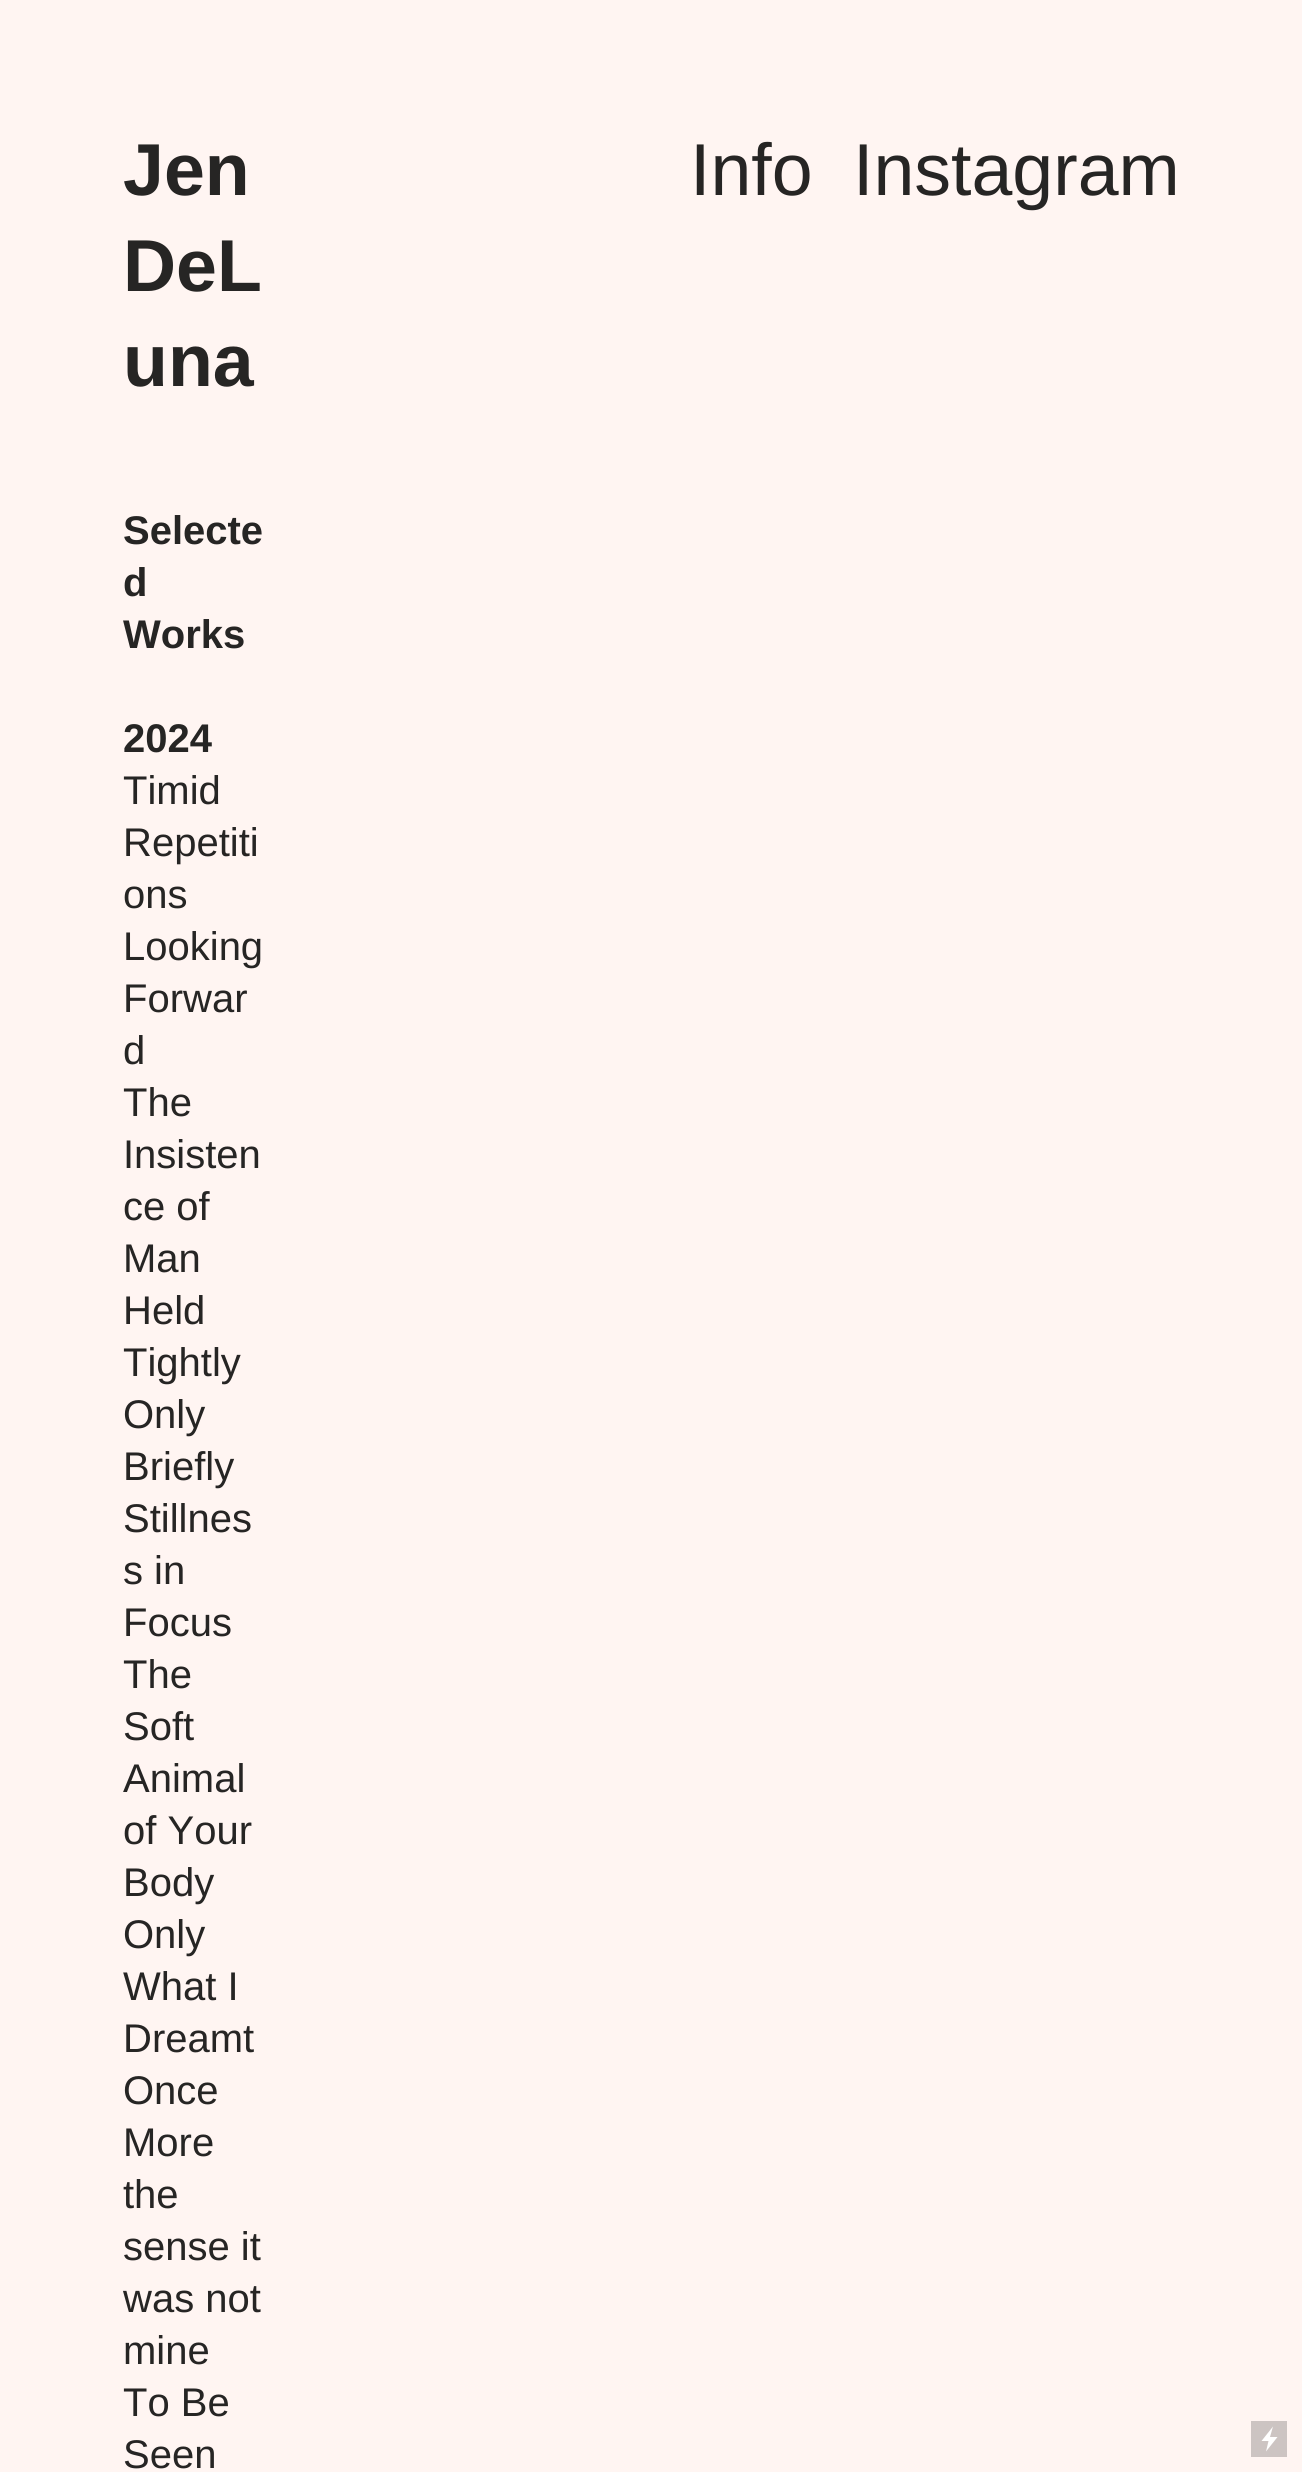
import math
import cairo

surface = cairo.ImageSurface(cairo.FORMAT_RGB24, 1302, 2472)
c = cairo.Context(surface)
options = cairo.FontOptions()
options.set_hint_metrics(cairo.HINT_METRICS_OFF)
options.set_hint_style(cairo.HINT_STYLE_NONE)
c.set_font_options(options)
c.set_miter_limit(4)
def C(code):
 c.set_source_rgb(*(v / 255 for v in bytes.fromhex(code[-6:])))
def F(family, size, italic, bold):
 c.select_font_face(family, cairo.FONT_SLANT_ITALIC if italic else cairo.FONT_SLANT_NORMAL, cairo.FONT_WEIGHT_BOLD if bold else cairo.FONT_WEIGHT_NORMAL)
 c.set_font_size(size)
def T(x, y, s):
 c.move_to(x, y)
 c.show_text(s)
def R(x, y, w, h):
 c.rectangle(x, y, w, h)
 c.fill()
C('fff5f2')
c.paint()
F('Liberation Sans',73.5,0,1)
C('262524')
T(123,195,'Jen')
T(123,291,'DeL')
T(123,386,'una')
F('Liberation Sans',40,0,1)
T(123,544,'Selecte')
T(123,596,'d')
T(123,648,'Works')
T(123,752,'2024')
F('Liberation Sans',40,0,0)
T(123,804,'Timid')
T(123,856,'Repetiti')
T(123,908,'ons')
T(123,960,'Looking')
T(123,1012,'Forwar')
T(123,1064,'d')
T(123,1116,'The')
T(123,1168,'Insisten')
T(123,1220,'ce of')
T(123,1272,'Man')
T(123,1324,'Held')
T(123,1376,'Tightly')
T(123,1428,'Only')
T(123,1480,'Briefly')
T(123,1532,'Stillnes')
T(123,1584,'s in')
T(123,1636,'Focus')
T(123,1688,'The')
T(123,1740,'Soft')
T(123,1792,'Animal')
T(123,1844,'of Your')
T(123,1896,'Body')
T(123,1948,'Only')
T(123,2000,'What I')
T(123,2052,'Dreamt')
T(123,2104,'Once')
T(123,2156,'More')
T(123,2208,'the')
T(123,2260,'sense it')
T(123,2312,'was not')
T(123,2364,'mine')
T(123,2416,'To Be')
T(123,2468,'Seen')
F('Liberation Sans',73.5,0,0)
T(690,195,'Info')
T(853,195,'Instagram')
C('ccc4c2')
R(1251,2421,36,36)
C('ffffff')
c.new_path()
c.move_to(1277.5,2437)
c.line_to(1270,2437)
c.line_to(1273,2426.5)
c.line_to(1261.5,2441)
c.line_to(1268.5,2441)
c.line_to(1266,2451.5)
c.close_path()
c.fill()
surface.write_to_png('o.png')
